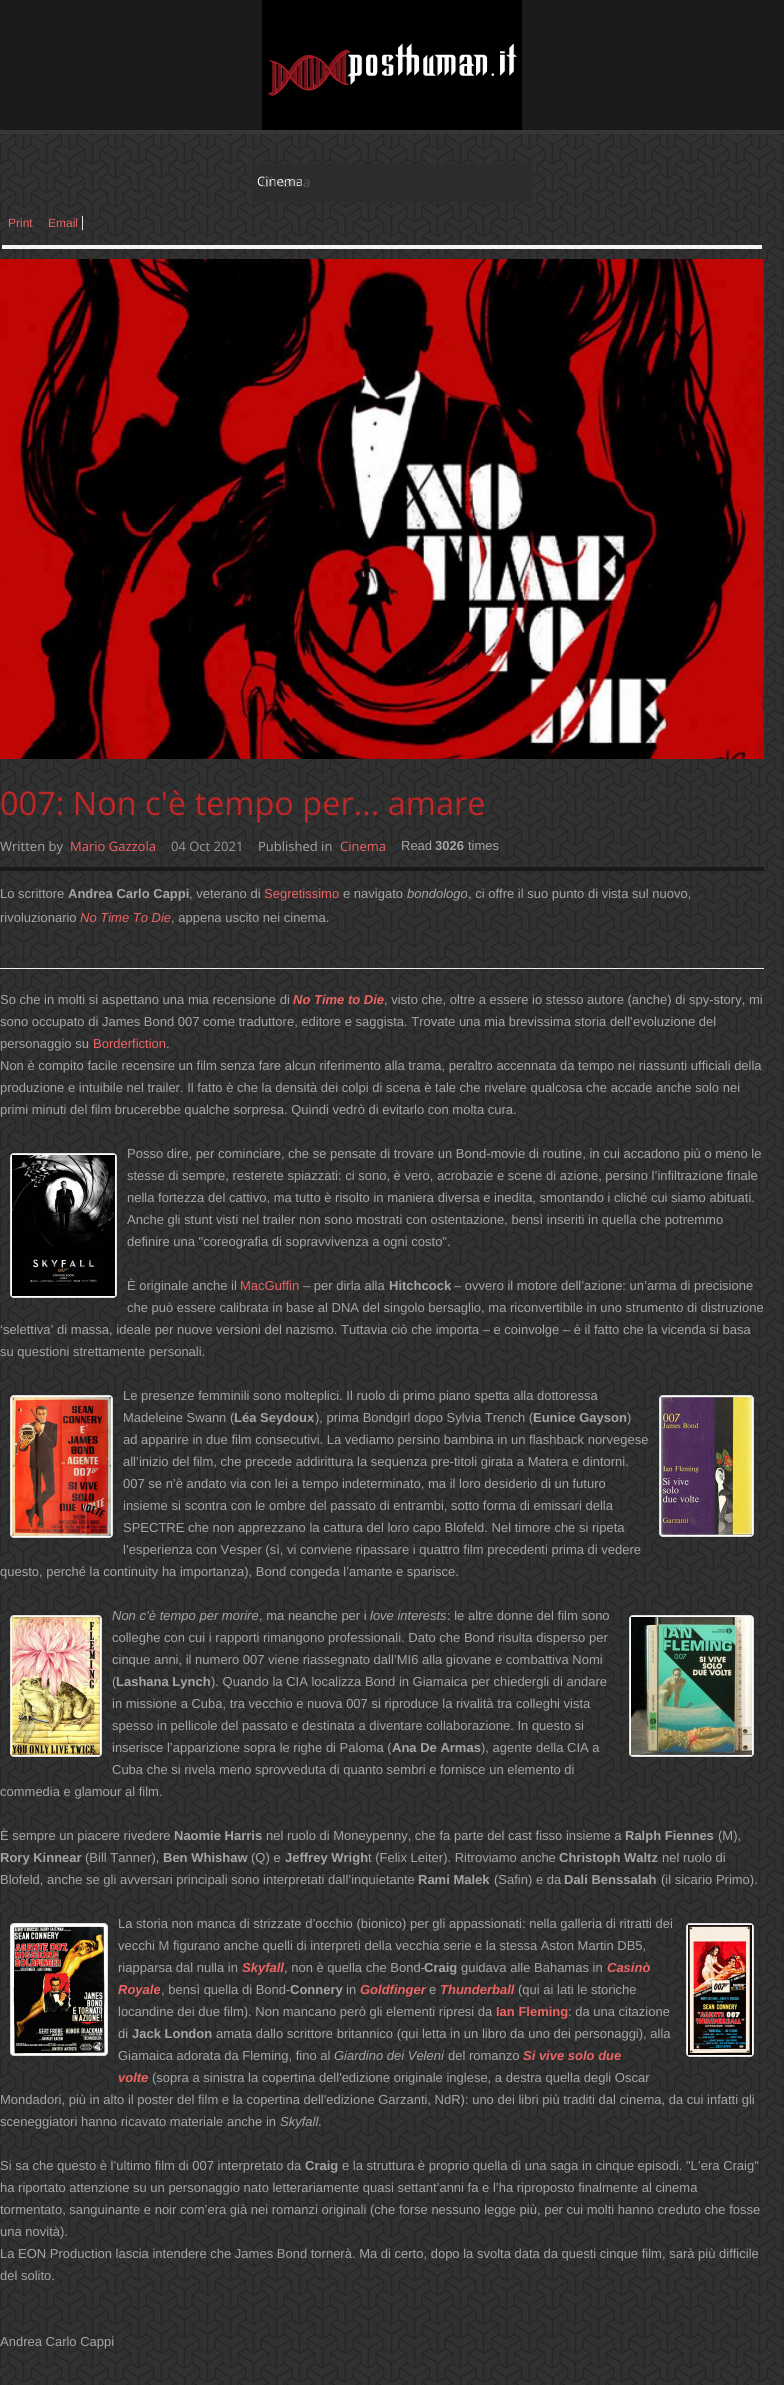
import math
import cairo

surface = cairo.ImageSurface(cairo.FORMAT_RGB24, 784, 2385)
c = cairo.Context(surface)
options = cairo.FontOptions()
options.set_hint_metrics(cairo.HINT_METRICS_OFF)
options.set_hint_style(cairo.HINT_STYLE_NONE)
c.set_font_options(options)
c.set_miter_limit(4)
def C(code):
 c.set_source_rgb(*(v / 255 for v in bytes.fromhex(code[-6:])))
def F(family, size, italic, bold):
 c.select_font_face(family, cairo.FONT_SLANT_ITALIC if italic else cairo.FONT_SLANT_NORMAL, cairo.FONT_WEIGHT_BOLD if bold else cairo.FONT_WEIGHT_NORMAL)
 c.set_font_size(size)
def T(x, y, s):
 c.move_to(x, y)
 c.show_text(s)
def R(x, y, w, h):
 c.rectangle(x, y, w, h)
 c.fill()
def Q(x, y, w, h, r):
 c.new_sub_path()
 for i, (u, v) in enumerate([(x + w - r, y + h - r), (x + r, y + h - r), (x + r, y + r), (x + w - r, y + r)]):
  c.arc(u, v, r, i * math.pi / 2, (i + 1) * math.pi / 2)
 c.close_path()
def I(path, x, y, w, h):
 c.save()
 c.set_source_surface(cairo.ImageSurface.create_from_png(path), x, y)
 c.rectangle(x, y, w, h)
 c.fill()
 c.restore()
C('ffffff')
c.paint()
I('1.png',0,134,784,2251)
C('1a1a1a')
R(0,0,784,130)
C('363636')
R(0,130,784,4)
I('2.png',262,0,260,130)
C('2c2c2c')
R(252,164,280,38)
F('Open Sans',13,0,0)
C('ffffff')
T(257,186,'Cinema')
F('Open Sans',14,0,0)
C('585858')
T(261,187,'Cinema')
C('f5f5f5')
R(2,245,760,4)
F('Liberation Sans',12,0,0)
C('ec6464')
T(8,227,'Print')
T(48,227,'Email')
C('e4e4e4')
R(82,216,1,14)
I('3.png',0,259,764,500)
C('1a1a1a')
R(0,867,764,4)
F('Open Sans',32.5,0,0)
C('bf2626')
T(0,815,'007: Non c\'è tempo per... amare')
F('Open Sans',13,0,0)
C('a5a5a5')
T(0,851,'Written by')
C('ec6464')
T(70,851,'Mario Gazzola')
C('999999')
T(171,851,'04 Oct 2021')
C('a5a5a5')
T(258,851,'Published in')
C('ec6464')
T(340,851,'Cinema')
F('Liberation Sans',13,0,0)
C('a5a5a5')
T(401,850,'Read')
F('Liberation Sans',13,0,1)
T(435,850,'3026')
F('Liberation Sans',13,0,0)
T(468,850,'times')
T(0,898,'Lo scrittore')
F('Liberation Sans',13,0,1)
T(68,898,'Andrea Carlo Cappi')
F('Liberation Sans',13,0,0)
T(189,898,', veterano di')
C('ec6464')
T(264,898,'Segretissimo')
C('a5a5a5')
T(343,898,'e navigato')
F('Liberation Sans',13,1,0)
T(407,898,'bondologo')
F('Liberation Sans',13,0,0)
T(468,898,', ci offre il suo punto di vista sul nuovo,')
T(0,922,'rivoluzionario')
F('Liberation Sans',13,1,0)
C('ec6464')
T(80,922,'No Time To Die')
F('Liberation Sans',13,0,0)
C('a5a5a5')
T(171,922,', appena uscito nei cinema.')
C('eeeeee')
R(0,968,764,1)
C('a5a5a5')
T(0,1004,'So che in molti si aspettano una mia recensione di')
F('Liberation Sans',13,1,1)
C('ec6464')
T(293,1004,'No Time to Die')
F('Liberation Sans',13,0,0)
C('a5a5a5')
T(384,1004,', visto che, oltre a essere io stesso autore (anche) di spy-story, mi')
T(0,1026,'sono occupato di James Bond 007 come traduttore, editore e saggista. Trovate una mia brevissima storia dell’evoluzione del')
T(0,1048,'personaggio su')
C('ec6464')
T(93,1048,'Borderfiction')
C('a5a5a5')
T(166,1048,'.')
T(0,1070,'Non è compito facile recensire un film senza fare alcun riferimento alla trama, peraltro accennata da tempo nei riassunti ufficiali della')
T(0,1092,'produzione e intuibile nel trailer. Il fatto è che la densità dei colpi di scena è tale che rivelare qualcosa che accade anche solo nei')
T(0,1114,'primi minuti del film brucerebbe qualche sorpresa. Quindi vedrò di evitarlo con molta cura.')
C('ffffff')
Q(10.5,1153.5,106,144,3.5)
c.fill_preserve()
C('dddddd')
c.set_line_width(1)
c.stroke()
I('4.png',12,1155,103,141)
C('a5a5a5')
T(127,1158,'Posso dire, per cominciare, che se pensate di trovare un Bond-movie di routine, in cui accadono più o meno le')
T(127,1180,'stesse di sempre, resterete spiazzati: ci sono, è vero, acrobazie e scene di azione, persino l’infiltrazione finale')
T(127,1202,'nella fortezza del cattivo, ma tutto è risolto in maniera diversa e inedita, smontando i cliché cui siamo abituati.')
T(127,1224,'Anche gli stunt visti nel trailer non sono mostrati con ostentazione, bensì inseriti in quella che potremmo')
T(127,1246,'definire una "coreografia di sopravvivenza a ogni costo".')
T(127,1290,'È originale anche il')
C('ec6464')
T(240,1290,'MacGuffin')
C('a5a5a5')
T(303,1290,'– per dirla alla')
F('Liberation Sans',13,0,1)
T(389,1290,'Hitchcock')
F('Liberation Sans',13,0,0)
T(454,1290,'– ovvero il motore dell’azione: un’arma di precisione')
T(127,1312,'che può essere calibrata in base al DNA del singolo bersaglio, ma riconvertibile in uno strumento di distruzione')
T(0,1334,'‘selettiva’ di massa, ideale per nuove versioni del nazismo. Tuttavia ciò che importa – e coinvolge – è il fatto che la vicenda si basa')
T(0,1356,'su questioni strettamente personali.')
C('ffffff')
Q(10.5,1395.5,102,142,3.5)
c.fill_preserve()
C('dddddd')
c.stroke()
I('5.png',12,1397,99,139)
C('a5a5a5')
T(123,1400,'Le presenze femminili sono molteplici. Il ruolo di primo piano spetta alla dottoressa')
C('ffffff')
Q(659.5,1395.5,94,141,3.5)
c.fill_preserve()
C('dddddd')
c.stroke()
I('6.png',661,1397,91,138)
C('a5a5a5')
T(123,1422,'Madeleine Swann (')
F('Liberation Sans',13,0,1)
T(234,1422,'Léa Seydoux')
F('Liberation Sans',13,0,0)
T(315,1422,'), prima Bondgirl dopo Sylvia Trench (')
F('Liberation Sans',13,0,1)
T(533,1422,'Eunice Gayson')
F('Liberation Sans',13,0,0)
T(627,1422,')')
T(123,1444,'ad apparire in due film consecutivi. La vediamo persino bambina in un flashback norvegese')
T(123,1466,'all’inizio del film, che precede addirittura la sequenza pre-titoli girata a Matera e dintorni.')
T(123,1488,'007 se n’è andato via con lei a tempo indeterminato, ma il loro desiderio di un futuro')
T(123,1510,'insieme si scontra con le ombre del passato di entrambi, sotto forma di emissari della')
T(123,1532,'SPECTRE che non apprezzano la cattura del loro capo Blofeld. Nel timore che si ripeta')
T(123,1554,'l’esperienza con Vesper (sì, vi conviene ripassare i quattro film precedenti prima di vedere')
T(0,1576,'questo, perché la continuity ha importanza), Bond congeda l’amante e sparisce.')
C('ffffff')
Q(10.5,1615.5,91,141,3.5)
c.fill_preserve()
C('dddddd')
c.stroke()
I('7.png',12,1617,88,138)
F('Liberation Sans',13,1,0)
C('a5a5a5')
T(112,1620,'Non c’è tempo per morire')
C('ffffff')
Q(629.5,1615.5,124,141,3.5)
c.fill_preserve()
C('dddddd')
c.stroke()
I('8.png',631,1617,121,138)
F('Liberation Sans',13,0,0)
C('a5a5a5')
T(259,1620,', ma neanche per i')
F('Liberation Sans',13,1,0)
T(370,1620,'love interests')
F('Liberation Sans',13,0,0)
T(447,1620,': le altre donne del film sono')
T(112,1642,'colleghe con cui i rapporti rimangono professionali. Dato che Bond risulta disperso per')
T(112,1664,'cinque anni, il numero 007 viene riassegnato dall’MI6 alla giovane e combattiva Nomi')
T(112,1686,'(')
F('Liberation Sans',13,0,1)
T(116,1686,'Lashana Lynch')
F('Liberation Sans',13,0,0)
T(211,1686,'). Quando la CIA localizza Bond in Giamaica per chiedergli di andare')
T(112,1708,'in missione a Cuba, tra vecchio e nuova 007 si riproduce la rivalità tra colleghi vista')
T(112,1730,'spesso in pellicole del passato e destinata a diventare collaborazione. In questo si')
T(112,1752,'inserisce l’apparizione sopra le righe di Paloma (')
F('Liberation Sans',13,0,1)
T(392,1752,'Ana De Armas')
F('Liberation Sans',13,0,0)
T(481,1752,'), agente della CIA a')
T(112,1774,'Cuba che si rivela meno sprovveduta di quanto sembri e fornisce un elemento di')
T(0,1796,'commedia e glamour al film.')
T(0,1840,'È sempre un piacere rivedere')
F('Liberation Sans',13,0,1)
T(174,1840,'Naomie Harris')
F('Liberation Sans',13,0,0)
T(266,1840,'nel ruolo di Moneypenny, che fa parte del cast fisso insieme a')
F('Liberation Sans',13,0,1)
T(625,1840,'Ralph Fiennes')
F('Liberation Sans',13,0,0)
T(718,1840,'(M),')
F('Liberation Sans',13,0,1)
T(0,1862,'Rory Kinnear')
F('Liberation Sans',13,0,0)
T(85,1862,'(Bill Tanner),')
F('Liberation Sans',13,0,1)
T(163,1862,'Ben Whishaw')
F('Liberation Sans',13,0,0)
T(251,1862,'(Q) e')
F('Liberation Sans',13,0,1)
T(285,1862,'Jeffrey Wrigh')
F('Liberation Sans',13,0,0)
T(368,1862,'t (Felix Leiter). Ritroviamo anche')
F('Liberation Sans',13,0,1)
T(559,1862,'Christoph Waltz')
F('Liberation Sans',13,0,0)
T(662,1862,'nel ruolo di')
T(0,1884,'Blofeld, anche se gli avversari principali sono interpretati dall’inquietante')
F('Liberation Sans',13,0,1)
T(418,1884,'Rami Malek')
F('Liberation Sans',13,0,0)
T(494,1884,'(Safin) e da')
F('Liberation Sans',13,0,1)
T(564,1884,'Dali Benssalah')
F('Liberation Sans',13,0,0)
T(661,1884,'(il sicario Primo).')
C('ffffff')
Q(10.5,1923.5,97,132,3.5)
c.fill_preserve()
C('dddddd')
c.stroke()
I('9.png',12,1925,94,129)
C('a5a5a5')
T(118,1928,'La storia non manca di strizzate d’occhio (bionico) per gli appassionati: nella galleria di ritratti dei')
C('ffffff')
Q(686.5,1923.5,67,133,3.5)
c.fill_preserve()
C('dddddd')
c.stroke()
I('10.png',688,1925,64,130)
C('a5a5a5')
T(118,1950,'vecchi M figurano anche quelli di interpreti della vecchia serie e la stessa Aston Martin DB5,')
T(118,1972,'riapparsa dal nulla in')
F('Liberation Sans',13,1,1)
C('ec6464')
T(242,1972,'Skyfall')
F('Liberation Sans',13,0,0)
C('a5a5a5')
T(284,1972,', non è quella che Bond-')
F('Liberation Sans',13,0,1)
T(424,1972,'Craig')
F('Liberation Sans',13,0,0)
T(461,1972,'guidava alle Bahamas in')
F('Liberation Sans',13,1,1)
C('ec6464')
T(607,1972,'Casinò')
T(118,1994,'Royale')
F('Liberation Sans',13,0,0)
C('a5a5a5')
T(161,1994,', bensì quella di Bond-')
F('Liberation Sans',13,0,1)
T(290,1994,'Connery')
F('Liberation Sans',13,0,0)
T(346,1994,'in')
F('Liberation Sans',13,1,1)
C('ec6464')
T(360,1994,'Goldfinger')
F('Liberation Sans',13,0,0)
C('a5a5a5')
T(429,1994,'e')
F('Liberation Sans',13,1,1)
C('ec6464')
T(440,1994,'Thunderball')
F('Liberation Sans',13,0,0)
C('a5a5a5')
T(518,1994,'(qui ai lati le storiche')
T(118,2016,'locandine dei due film). Non mancano però gli elementi ripresi da')
F('Liberation Sans',13,0,1)
C('ec6464')
T(496,2016,'Ian Fleming')
F('Liberation Sans',13,0,0)
C('a5a5a5')
T(568,2016,': da una citazione')
T(118,2038,'di')
F('Liberation Sans',13,0,1)
T(132,2038,'Jack London')
F('Liberation Sans',13,0,0)
T(216,2038,'amata dallo scrittore britannico (qui letta in un libro da uno dei personaggi), alla')
T(118,2060,'Giamaica adorata da Fleming, fino al')
F('Liberation Sans',13,1,0)
T(334,2060,'Giardino dei Veleni')
F('Liberation Sans',13,0,0)
T(448,2060,'del romanzo')
F('Liberation Sans',13,1,1)
C('ec6464')
T(523,2060,'Si vive solo due')
T(118,2082,'volte')
F('Liberation Sans',13,0,0)
C('a5a5a5')
T(152,2082,'(sopra a sinistra la copertina dell\'edizione originale inglese, a destra quella degli Oscar')
T(0,2104,'Mondadori, più in alto il poster del film e la copertina dell\'edizione Garzanti, NdR): uno dei libri più traditi dal cinema, da cui infatti gli')
T(0,2126,'sceneggiatori hanno ricavato materiale anche in')
F('Liberation Sans',13,1,0)
T(280,2126,'Skyfall')
F('Liberation Sans',13,0,0)
T(318,2126,'.')
T(0,2170,'Si sa che questo è l’ultimo film di 007 interpretato da')
F('Liberation Sans',13,0,1)
T(305,2170,'Craig')
F('Liberation Sans',13,0,0)
T(342,2170,'e la struttura è proprio quella di una saga in cinque episodi. "L’era Craig"')
T(0,2192,'ha riportato attenzione su un personaggio nato letterariamente quasi settant’anni fa e l’ha riproposto finalmente al cinema')
T(0,2214,'tormentato, sanguinante e noir com’era già nei romanzi originali (che forse nessuno legge più, per cui molti hanno creduto che fosse')
T(0,2236,'una novità).')
T(0,2258,'La EON Production lascia intendere che James Bond tornerà. Ma di certo, dopo la svolta data da questi cinque film, sarà più difficile')
T(0,2280,'del solito.')
T(0,2346,'Andrea Carlo Cappi')
surface.write_to_png('o.png')
